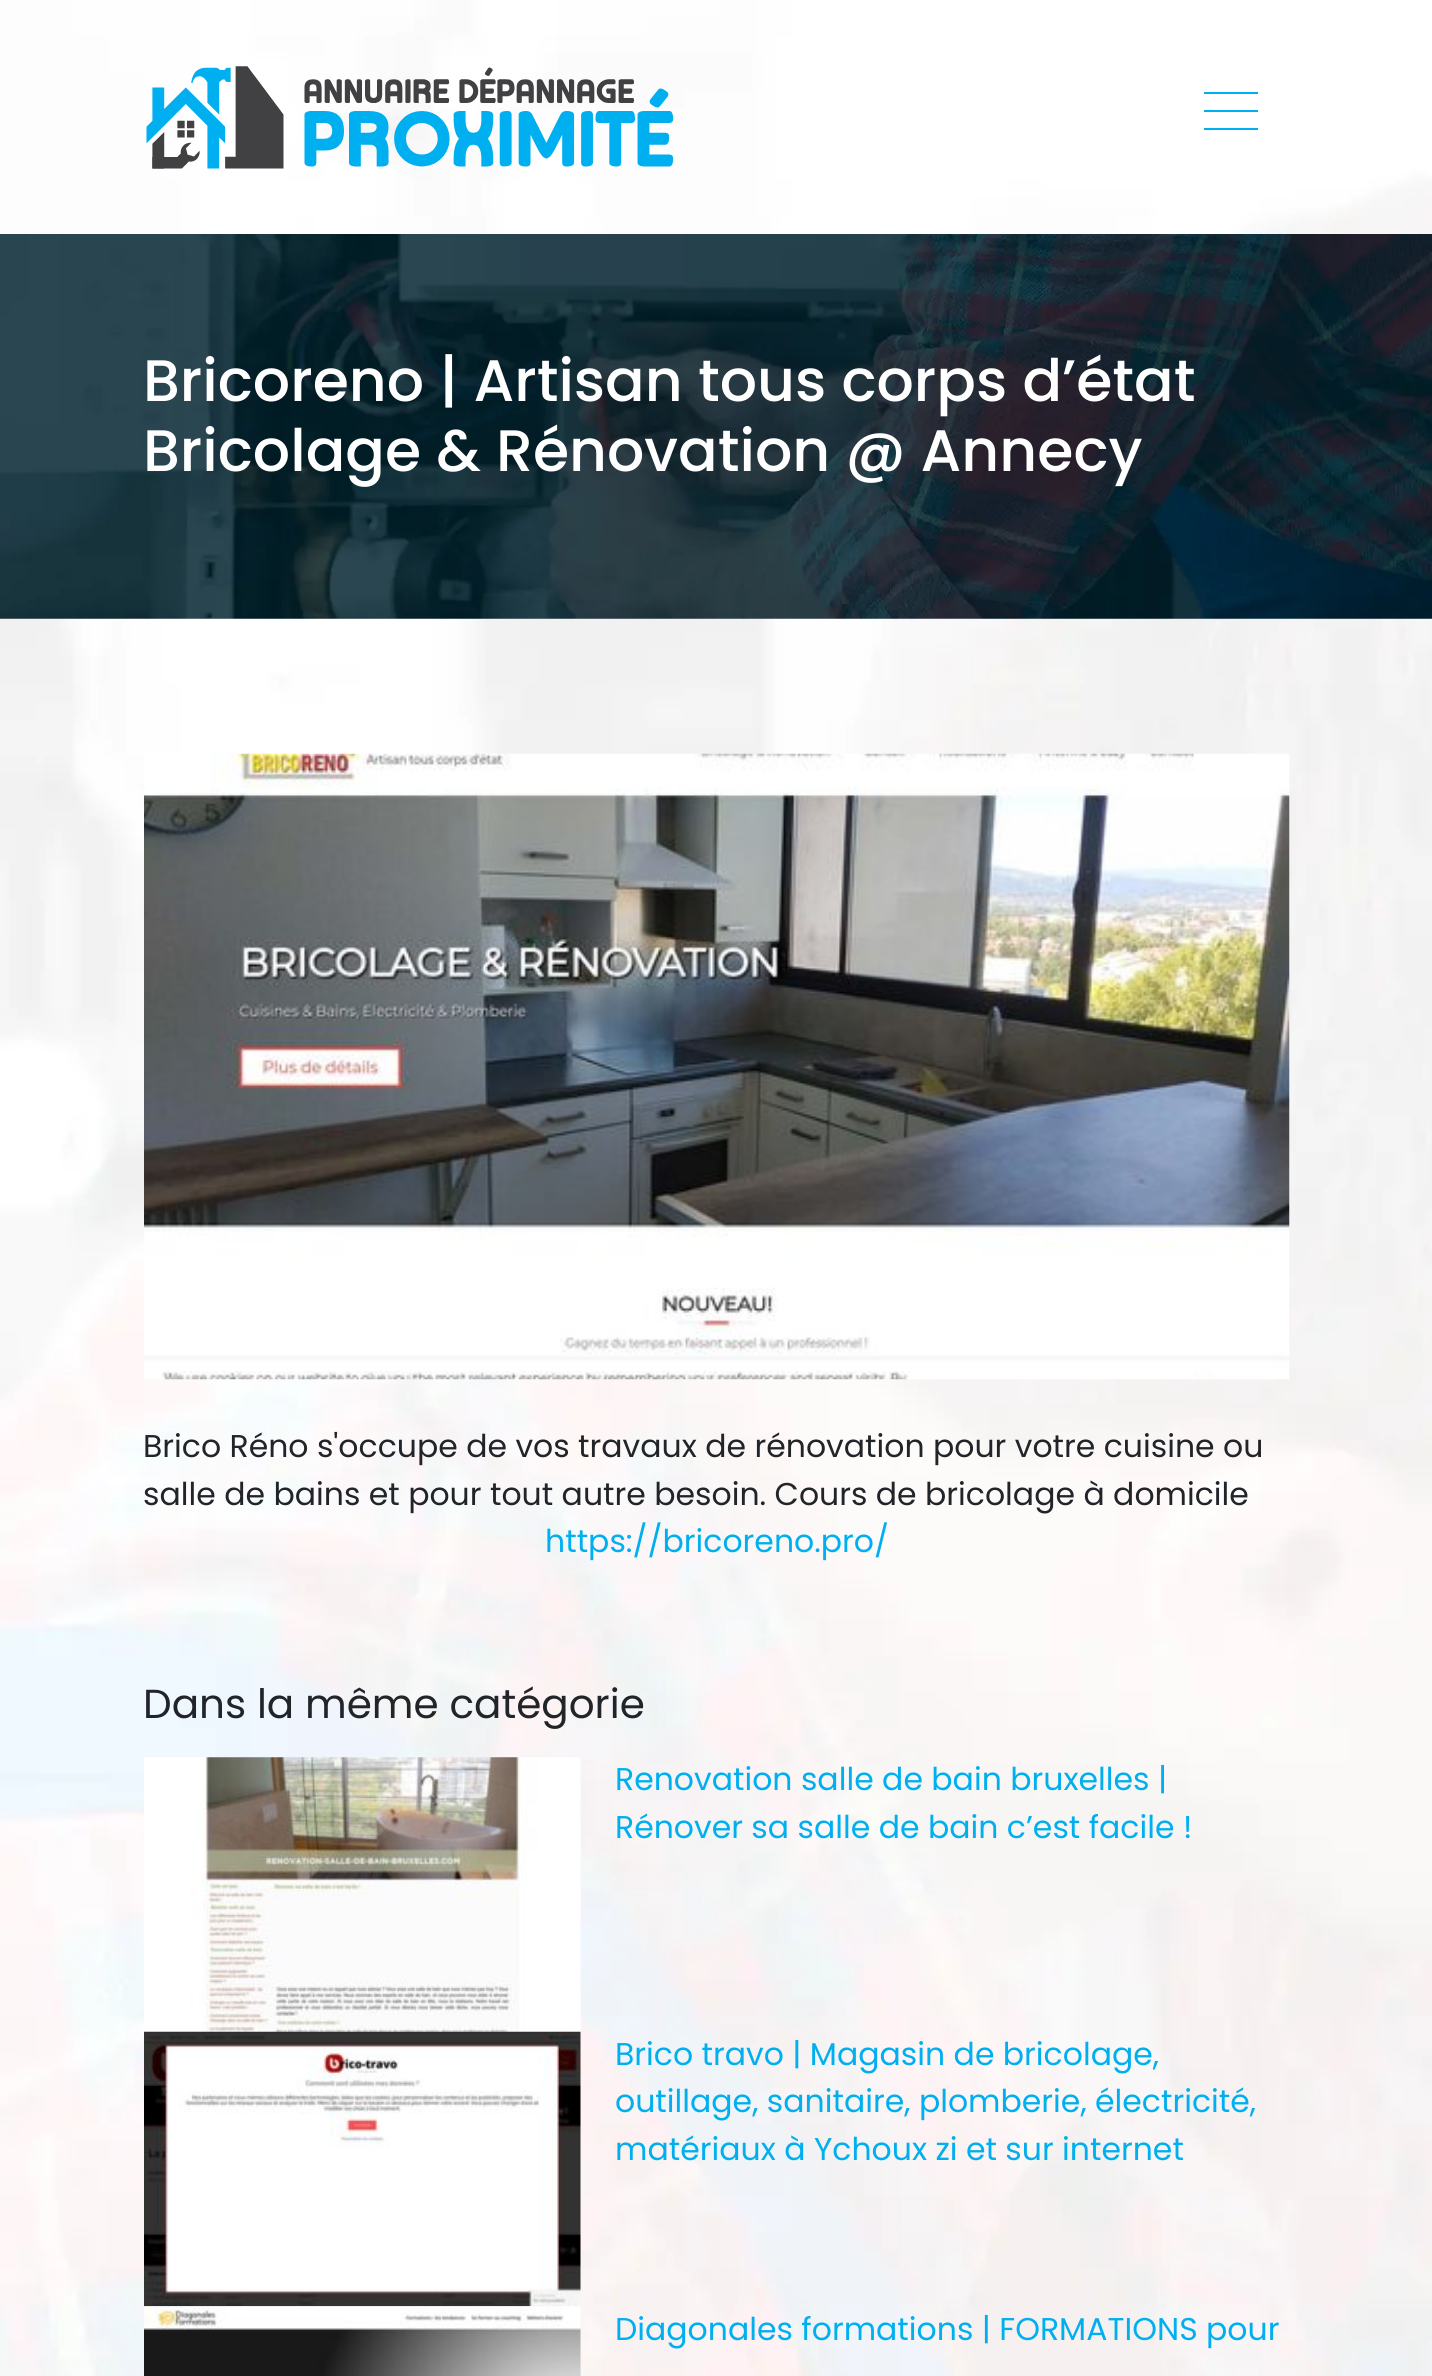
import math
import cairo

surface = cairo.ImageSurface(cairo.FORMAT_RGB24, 1432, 2376)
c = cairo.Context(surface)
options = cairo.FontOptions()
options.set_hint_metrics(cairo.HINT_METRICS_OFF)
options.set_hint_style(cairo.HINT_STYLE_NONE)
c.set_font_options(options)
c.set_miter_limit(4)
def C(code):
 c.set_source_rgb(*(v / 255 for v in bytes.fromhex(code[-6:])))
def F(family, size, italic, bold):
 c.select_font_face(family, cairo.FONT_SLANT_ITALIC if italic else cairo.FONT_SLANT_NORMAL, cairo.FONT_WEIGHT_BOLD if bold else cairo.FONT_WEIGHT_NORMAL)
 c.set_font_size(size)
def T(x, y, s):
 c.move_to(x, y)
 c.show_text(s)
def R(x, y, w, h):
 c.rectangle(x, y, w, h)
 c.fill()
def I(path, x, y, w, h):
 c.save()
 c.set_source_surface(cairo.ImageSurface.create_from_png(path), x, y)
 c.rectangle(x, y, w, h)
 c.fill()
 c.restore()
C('ffffff')
c.paint()
I('1.png',0,0,1432,2376)
I('2.png',146,66,528,103)
C('00afef')
R(1204,92,54,2)
R(1204,110,54,2)
R(1204,128,54,2)
I('3.png',0,234,1432,385)
F('Poppins Medium',58.5,0,0)
C('ffffff')
T(143,401,'Bricoreno | Artisan tous corps d’état')
T(143,471,'Bricolage & Rénovation @ Annecy')
I('4.png',144,753,1146,627)
F('Poppins',31.5,0,0)
C('212529')
T(143,1457,'Brico Réno s\'occupe de vos travaux de rénovation pour votre cuisine ou')
T(143,1505,'salle de bains et pour tout autre besoin. Cours de bricolage à domicile')
C('00afef')
T(545,1552,'https://bricoreno.pro/')
F('Poppins',40.5,0,0)
C('212529')
T(143,1718,'Dans la même catégorie')
I('5.png',144,1757,437,275)
F('Poppins',31.5,0,0)
C('00afef')
T(615,1790,'Renovation salle de bain bruxelles |')
T(615,1838,'Rénover sa salle de bain c’est facile !')
I('6.png',144,2031,437,276)
T(615,2065,'Brico travo | Magasin de bricolage,')
T(615,2112,'outillage, sanitaire, plomberie, électricité,')
T(615,2160,'matériaux à Ychoux zi et sur internet')
I('7.png',144,2306,437,70)
T(615,2340,'Diagonales formations | FORMATIONS pour')
surface.write_to_png('o.png')
